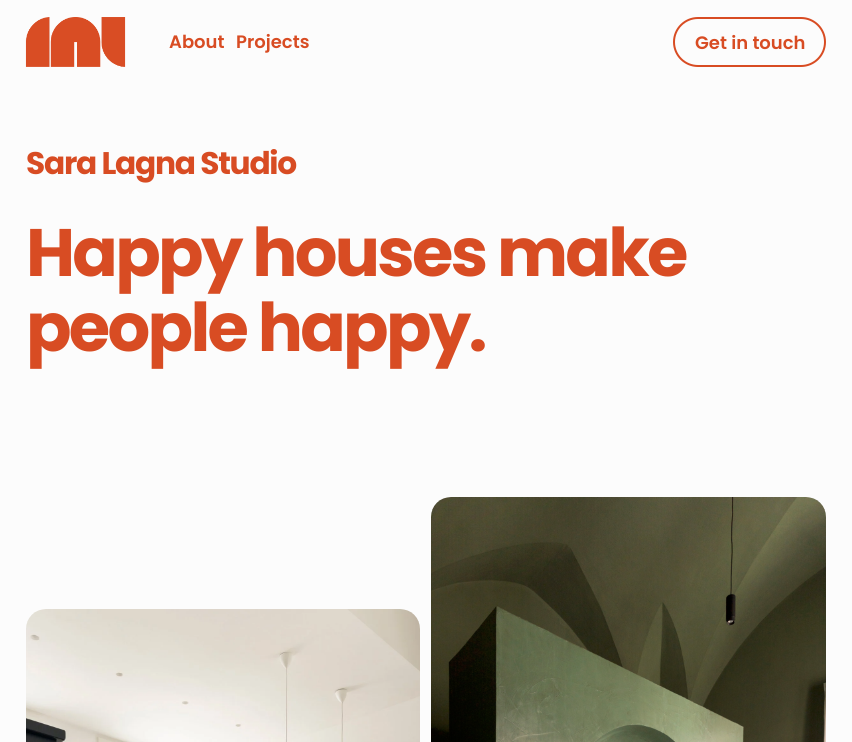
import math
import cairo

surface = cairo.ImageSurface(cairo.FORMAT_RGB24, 852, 742)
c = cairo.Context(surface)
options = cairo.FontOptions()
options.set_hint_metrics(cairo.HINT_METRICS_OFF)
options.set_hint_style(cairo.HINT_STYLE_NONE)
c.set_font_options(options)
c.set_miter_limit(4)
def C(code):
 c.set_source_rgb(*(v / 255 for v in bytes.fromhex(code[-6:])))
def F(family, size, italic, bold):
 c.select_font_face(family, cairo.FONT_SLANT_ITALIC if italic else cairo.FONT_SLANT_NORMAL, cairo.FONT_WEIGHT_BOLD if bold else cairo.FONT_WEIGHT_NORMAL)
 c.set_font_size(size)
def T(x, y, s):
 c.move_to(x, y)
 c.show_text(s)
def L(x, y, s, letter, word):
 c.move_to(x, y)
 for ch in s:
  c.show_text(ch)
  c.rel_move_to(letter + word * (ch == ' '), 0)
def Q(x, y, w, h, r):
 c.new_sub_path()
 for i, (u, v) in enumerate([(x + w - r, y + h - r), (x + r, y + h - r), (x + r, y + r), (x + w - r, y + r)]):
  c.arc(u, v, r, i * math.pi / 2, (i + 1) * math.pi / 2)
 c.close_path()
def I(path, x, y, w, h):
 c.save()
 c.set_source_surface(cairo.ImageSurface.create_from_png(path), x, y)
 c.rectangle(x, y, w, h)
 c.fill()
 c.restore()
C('fcfcfc')
c.paint()
I('1.png',25,17,101,50)
F('Poppins SemiBold',18,0,0)
C('d84c23')
T(169,48,'About')
T(236,48,'Projects')
Q(674,18,151,48,24)
c.stroke()
T(695,49,'Get in touch')
F('Poppins',31.25,0,1)
L(26,174,'Sara Lagna Studio',-1.25,0)
F('Poppins',67.1,0,1)
L(26,276,'Happy houses make',-2.7,0)
L(26,351,'people happy.',-2.7,0)
I('2.png',26,609,394,133)
I('3.png',431,497,395,245)
surface.write_to_png('o.png')
